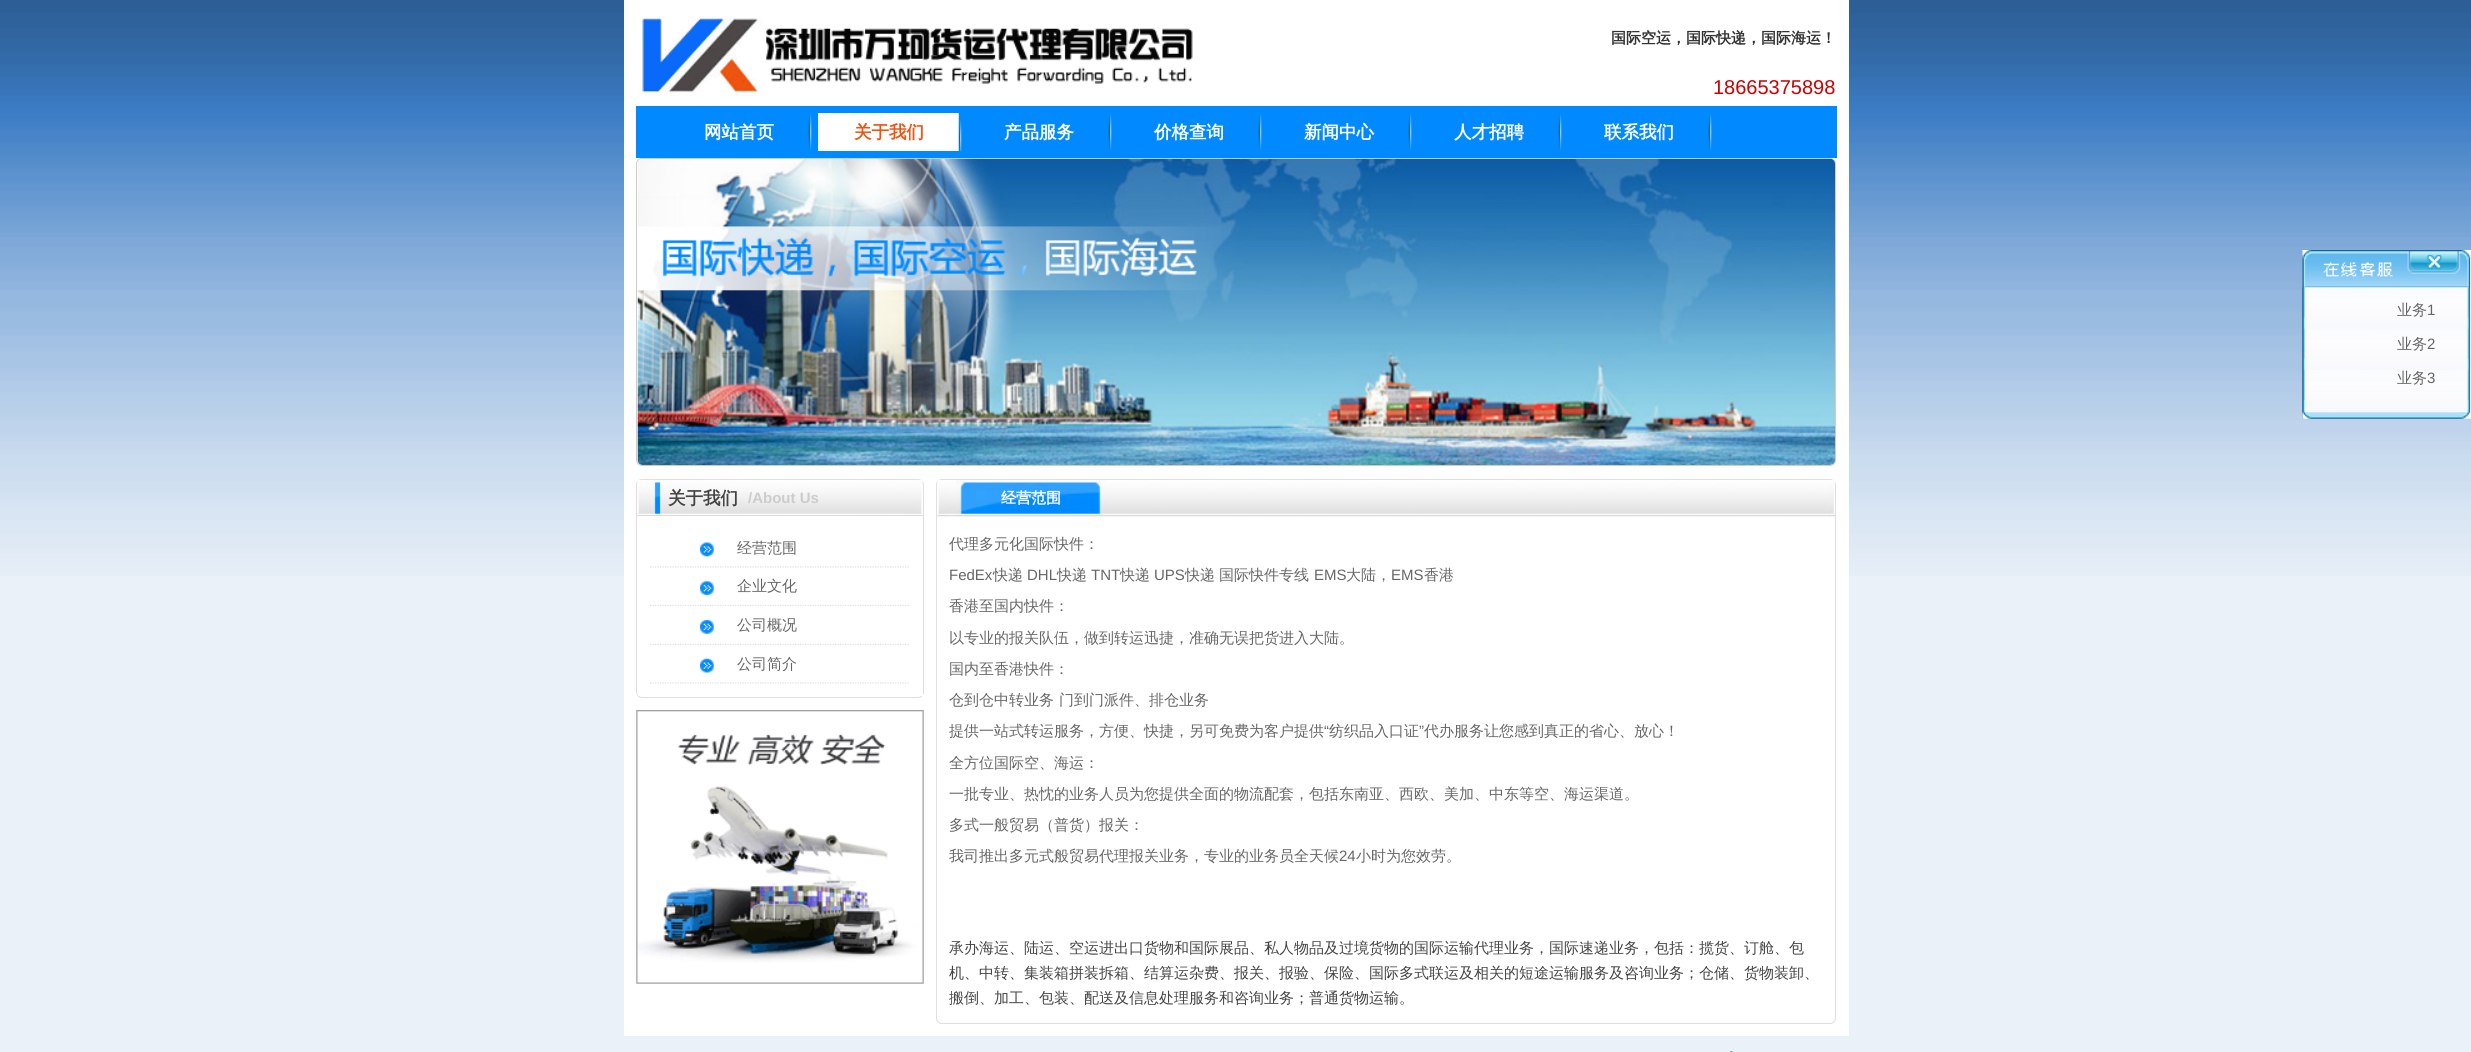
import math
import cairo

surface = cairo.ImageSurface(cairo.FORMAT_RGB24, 2471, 1052)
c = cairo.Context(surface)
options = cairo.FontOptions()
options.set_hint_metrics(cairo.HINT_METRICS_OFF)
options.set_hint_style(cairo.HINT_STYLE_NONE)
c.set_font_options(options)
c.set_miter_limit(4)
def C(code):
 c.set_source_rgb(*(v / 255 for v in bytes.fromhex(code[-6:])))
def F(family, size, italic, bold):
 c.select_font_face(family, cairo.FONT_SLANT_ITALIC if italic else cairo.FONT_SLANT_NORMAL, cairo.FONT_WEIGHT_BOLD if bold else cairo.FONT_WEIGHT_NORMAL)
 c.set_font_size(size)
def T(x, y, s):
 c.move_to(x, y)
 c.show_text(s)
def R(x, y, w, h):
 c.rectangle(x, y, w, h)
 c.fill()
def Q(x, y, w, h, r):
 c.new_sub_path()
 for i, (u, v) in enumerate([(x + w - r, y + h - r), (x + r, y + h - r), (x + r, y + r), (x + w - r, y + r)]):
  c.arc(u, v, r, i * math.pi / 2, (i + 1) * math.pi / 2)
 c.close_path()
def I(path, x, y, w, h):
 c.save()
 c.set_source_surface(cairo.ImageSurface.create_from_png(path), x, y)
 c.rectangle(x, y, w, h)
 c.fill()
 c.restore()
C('eaf1f9')
c.paint()
I('1.png',0,0,2471,576)
C('ffffff')
R(624,0,1225,1036)
I('2.png',642,18,551,78)
F('WenQuanYi Zen Hei',15,0,1)
C('333333')
T(1611,43,'国际空运，国际快递，国际海运！')
F('Liberation Sans',20,0,0)
C('cc0000')
T(1713,94,'18665375898')
C('0189ff')
R(636,106,1201,52)
I('3.png',808,112,4,39)
F('WenQuanYi Zen Hei',17.5,0,1)
C('ffffff')
T(704,138,'网站首页')
R(818,113,141,38)
I('4.png',958,113,4,39)
C('ed5411')
T(854,138,'关于我们')
I('3.png',1108,112,4,39)
C('ffffff')
T(1004,138,'产品服务')
I('3.png',1258,112,4,39)
T(1154,138,'价格查询')
I('3.png',1408,112,4,39)
T(1304,138,'新闻中心')
I('3.png',1558,112,4,39)
T(1454,138,'人才招聘')
I('3.png',1708,112,4,39)
T(1604,138,'联系我们')
I('5.png',2302,250,169,169)
I('6.png',2302,287,169,126)
F('WenQuanYi Zen Hei Medium',15,0,0)
C('666666')
T(2397,315,'业务')
F('Liberation Sans',15,0,0)
T(2427,315,'1')
F('WenQuanYi Zen Hei Medium',15,0,0)
T(2397,349,'业务')
F('Liberation Sans',15,0,0)
T(2427,349,'2')
F('WenQuanYi Zen Hei Medium',15,0,0)
T(2397,383,'业务')
F('Liberation Sans',15,0,0)
T(2427,383,'3')
I('7.png',2302,412,169,7)
Q(636.5,158.5,1199,307,5.5)
C('cccccc')
c.set_line_width(1)
c.stroke()
I('8.png',637,158,1198,307)
Q(636.5,479.5,287,218,5.5)
C('dfdfdf')
c.stroke()
I('9.png',637,480,286,37)
F('WenQuanYi Zen Hei',17.5,0,1)
C('444444')
T(668,504,'关于我们')
F('Liberation Sans',15,0,1)
C('cccccc')
T(748,503,'/About Us')
C('ffffff')
R(638,516,285,180)
I('10.png',700,542,14,15)
c.new_path()
c.move_to(650,567)
c.line_to(910,567)
C('dfdfdf')
c.set_line_width(1.2)
c.set_dash([1.25,1.25])
c.stroke()
F('WenQuanYi Zen Hei Medium',15,0,0)
C('666666')
T(737,553,'经营范围')
I('11.png',700,581,14,15)
c.new_path()
c.move_to(650,605.5)
c.line_to(910,605.5)
C('dfdfdf')
c.stroke()
C('666666')
T(737,591,'企业文化')
I('12.png',700,619,14,15)
c.new_path()
c.move_to(650,644.5)
c.line_to(910,644.5)
C('dfdfdf')
c.stroke()
C('666666')
T(737,630,'公司概况')
I('13.png',700,658,14,15)
c.new_path()
c.move_to(650,683)
c.line_to(910,683)
C('dfdfdf')
c.stroke()
C('666666')
T(737,669,'公司简介')
I('14.png',636,710,288,274)
Q(936.5,479.5,899,544,5.5)
C('dfdfdf')
c.set_line_width(1)
c.set_dash([])
c.stroke()
I('15.png',937,480,898,37)
F('WenQuanYi Zen Hei',15,0,1)
C('ffffff')
T(1001,503,'经营范围')
F('WenQuanYi Zen Hei Medium',15,0,0)
C('666666')
T(949,549,'代理多元化国际快件：')
F('Liberation Sans',15,0,0)
T(949,580,'FedEx')
F('WenQuanYi Zen Hei Medium',15,0,0)
T(993,580,'快递')
F('Liberation Sans',15,0,0)
T(1027,580,'DHL')
F('WenQuanYi Zen Hei Medium',15,0,0)
T(1057,580,'快递')
F('Liberation Sans',15,0,0)
T(1091,580,'TNT')
F('WenQuanYi Zen Hei Medium',15,0,0)
T(1120,580,'快递')
F('Liberation Sans',15,0,0)
T(1154,580,'UPS')
F('WenQuanYi Zen Hei Medium',15,0,0)
T(1185,580,'快递')
T(1219,580,'国际快件专线')
F('Liberation Sans',15,0,0)
T(1314,580,'EMS')
F('WenQuanYi Zen Hei Medium',15,0,0)
T(1346,580,'大陆，')
F('Liberation Sans',15,0,0)
T(1391,580,'EMS')
F('WenQuanYi Zen Hei Medium',15,0,0)
T(1424,580,'香港')
T(949,611,'香港至国内快件：')
T(949,643,'以专业的报关队伍，做到转运迅捷，准确无误把货进入大陆。')
T(949,674,'国内至香港快件：')
T(949,705,'仓到仓中转业务')
T(1059,705,'门到门派件、排仓业务')
T(949,736,'提供一站式转运服务，方便、快捷，另可免费为客户提供')
F('Liberation Sans',15,0,0)
T(1324,736,'“')
F('WenQuanYi Zen Hei Medium',15,0,0)
T(1329,736,'纺织品入口证')
F('Liberation Sans',15,0,0)
T(1419,736,'”')
F('WenQuanYi Zen Hei Medium',15,0,0)
T(1424,736,'代办服务让您感到真正的省心、放心！')
T(949,768,'全方位国际空、海运：')
T(949,799,'一批专业、热忱的业务人员为您提供全面的物流配套，包括东南亚、西欧、美加、中东等空、海运渠道。')
T(949,830,'多式一般贸易（普货）报关：')
T(949,861,'我司推出多元式般贸易代理报关业务，专业的业务员全天候')
F('Liberation Sans',15,0,0)
T(1339,861,'24')
F('WenQuanYi Zen Hei Medium',15,0,0)
T(1356,861,'小时为您效劳。')
C('444444')
T(949,953,'承办海运、陆运、空运进出口货物和国际展品、私人物品及过境货物的国际运输代理业务，国际速递业务，包括：揽货、订舱、包')
T(949,978,'机、中转、集装箱拼装拆箱、结算运杂费、报关、报验、保险、国际多式联运及相关的短途运输服务及咨询业务；仓储、货物装卸、')
T(949,1003,'搬倒、加工、包装、配送及信息处理服务和咨询业务；普通货物运输。')
I('16.png',1729,1051,4,1)
surface.write_to_png('o.png')
